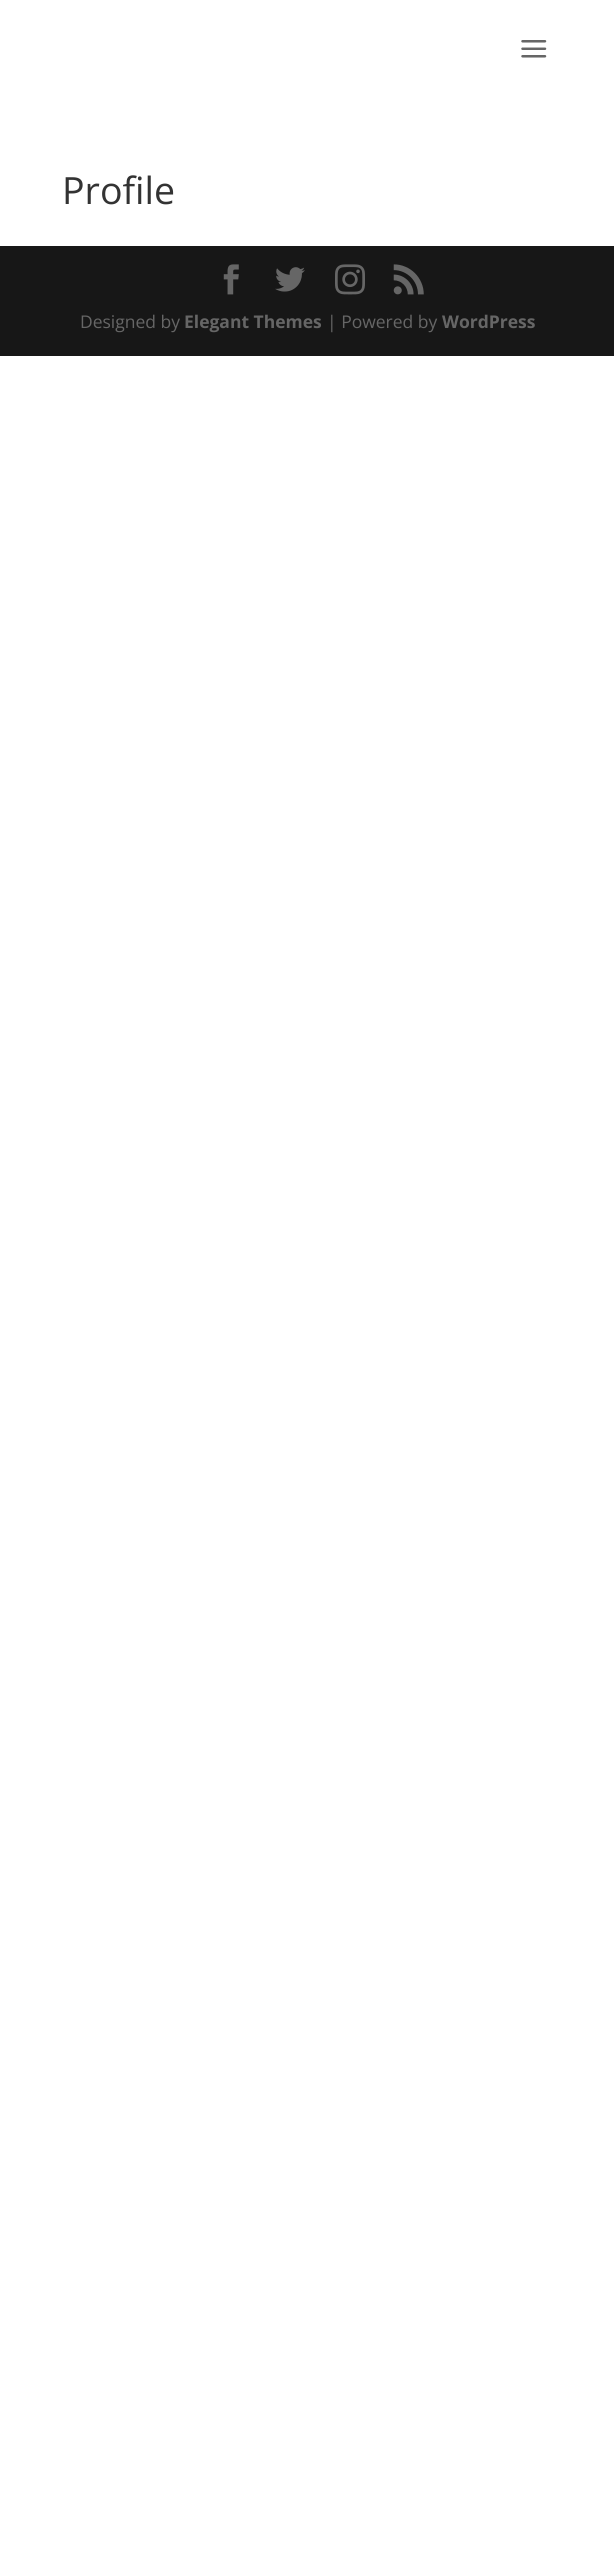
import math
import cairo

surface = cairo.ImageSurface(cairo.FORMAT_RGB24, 614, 2549)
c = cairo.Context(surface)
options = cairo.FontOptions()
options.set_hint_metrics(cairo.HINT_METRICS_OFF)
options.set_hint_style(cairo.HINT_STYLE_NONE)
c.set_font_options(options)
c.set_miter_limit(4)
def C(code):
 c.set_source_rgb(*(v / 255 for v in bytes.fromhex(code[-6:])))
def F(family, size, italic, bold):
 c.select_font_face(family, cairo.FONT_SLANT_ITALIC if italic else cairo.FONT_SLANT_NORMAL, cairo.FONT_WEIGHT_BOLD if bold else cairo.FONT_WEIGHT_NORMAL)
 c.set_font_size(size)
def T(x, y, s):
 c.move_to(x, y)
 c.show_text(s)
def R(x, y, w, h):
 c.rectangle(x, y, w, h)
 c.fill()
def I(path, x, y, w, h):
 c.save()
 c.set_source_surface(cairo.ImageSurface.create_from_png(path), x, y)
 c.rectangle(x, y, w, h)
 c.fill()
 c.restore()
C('ffffff')
c.paint()
I('1.png',521,40,26,18)
F('Open Sans',37.5,0,0)
C('333333')
T(62,204,'Profile')
C('171717')
R(0,246,614,110)
I('2.png',223,264,16,31)
I('3.png',275,267,30,25)
I('4.png',335,264,30,31)
I('5.png',393,264,31,31)
F('Open Sans',17.5,0,0)
C('666666')
T(80,328,'Designed by')
F('Open Sans',17.5,0,1)
T(184,328,'Elegant Themes')
F('Open Sans',17.5,0,0)
T(327,328,'| Powered by')
F('Open Sans',17.5,0,1)
T(442,328,'WordPress')
surface.write_to_png('o.png')
